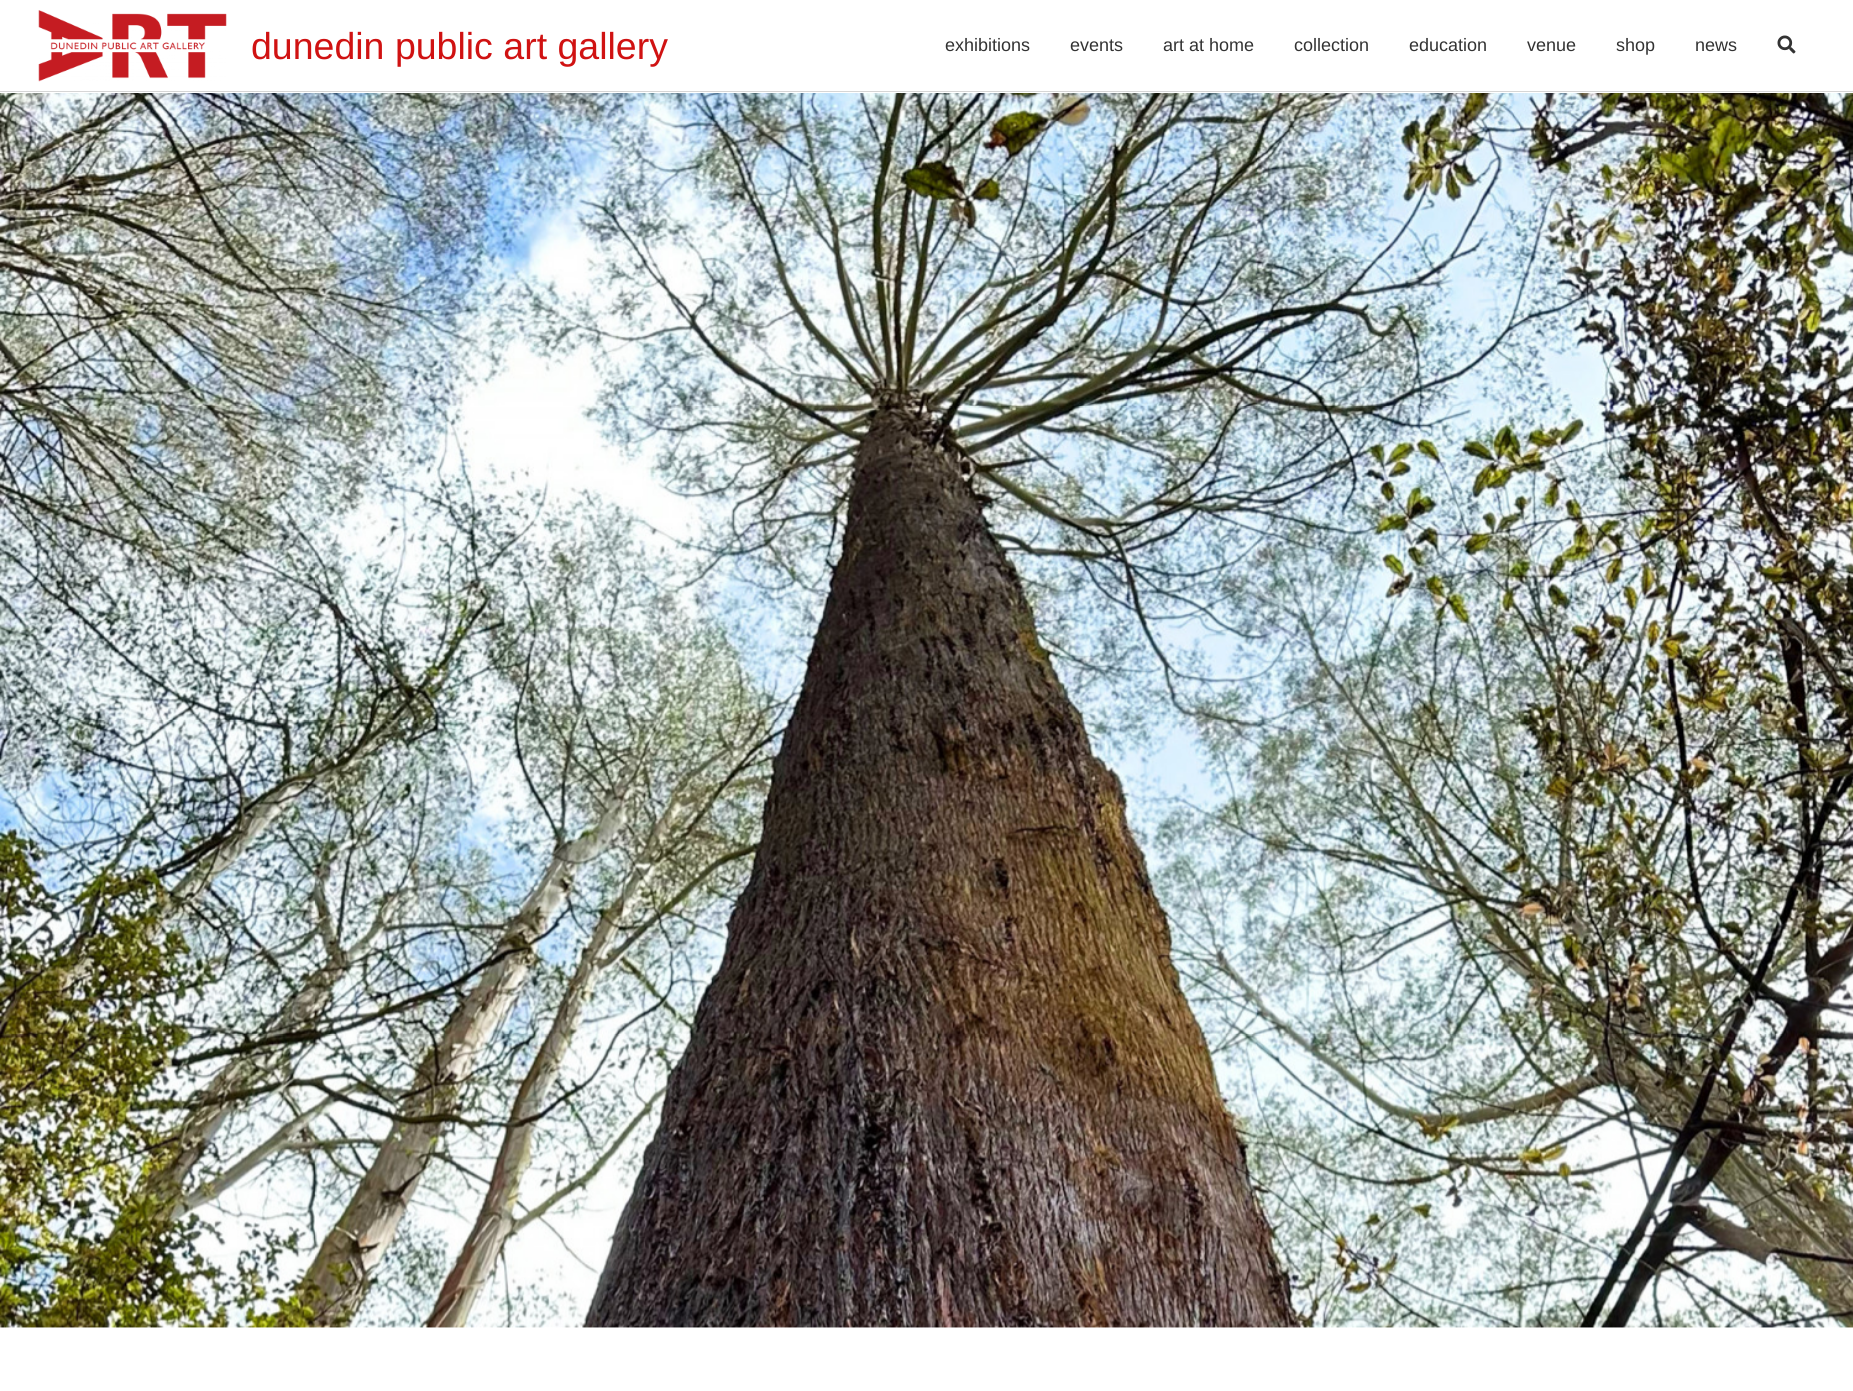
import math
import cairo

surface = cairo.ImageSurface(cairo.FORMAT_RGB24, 1853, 1391)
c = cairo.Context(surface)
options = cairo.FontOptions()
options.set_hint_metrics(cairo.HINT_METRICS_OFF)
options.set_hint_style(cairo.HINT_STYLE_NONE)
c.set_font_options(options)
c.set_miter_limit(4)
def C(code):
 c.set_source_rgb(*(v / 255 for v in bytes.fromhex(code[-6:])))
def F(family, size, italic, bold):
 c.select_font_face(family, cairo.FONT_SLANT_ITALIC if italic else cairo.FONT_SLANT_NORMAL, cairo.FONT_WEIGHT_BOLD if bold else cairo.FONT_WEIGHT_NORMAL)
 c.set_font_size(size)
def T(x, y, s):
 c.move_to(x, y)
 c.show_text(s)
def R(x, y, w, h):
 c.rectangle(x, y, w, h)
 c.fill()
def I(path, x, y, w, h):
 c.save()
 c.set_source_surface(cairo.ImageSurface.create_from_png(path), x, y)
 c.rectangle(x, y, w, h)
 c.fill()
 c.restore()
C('ffffff')
c.paint()
C('d6d6d6')
R(0,91,1853,1)
I('1.png',38,10,189,72)
F('Liberation Sans',37.5,0,0)
C('d01212')
T(251,59,'dunedin public art gallery')
F('Liberation Sans',18,0,0)
C('333333')
T(945,51,'exhibitions')
T(1070,51,'events')
T(1163,51,'art at home')
T(1294,51,'collection')
T(1409,51,'education')
T(1527,51,'venue')
T(1616,51,'shop')
T(1695,51,'news')
I('2.png',1777,35,19,19)
I('3.png',0,93,1853,1235)
surface.write_to_png('o.png')
